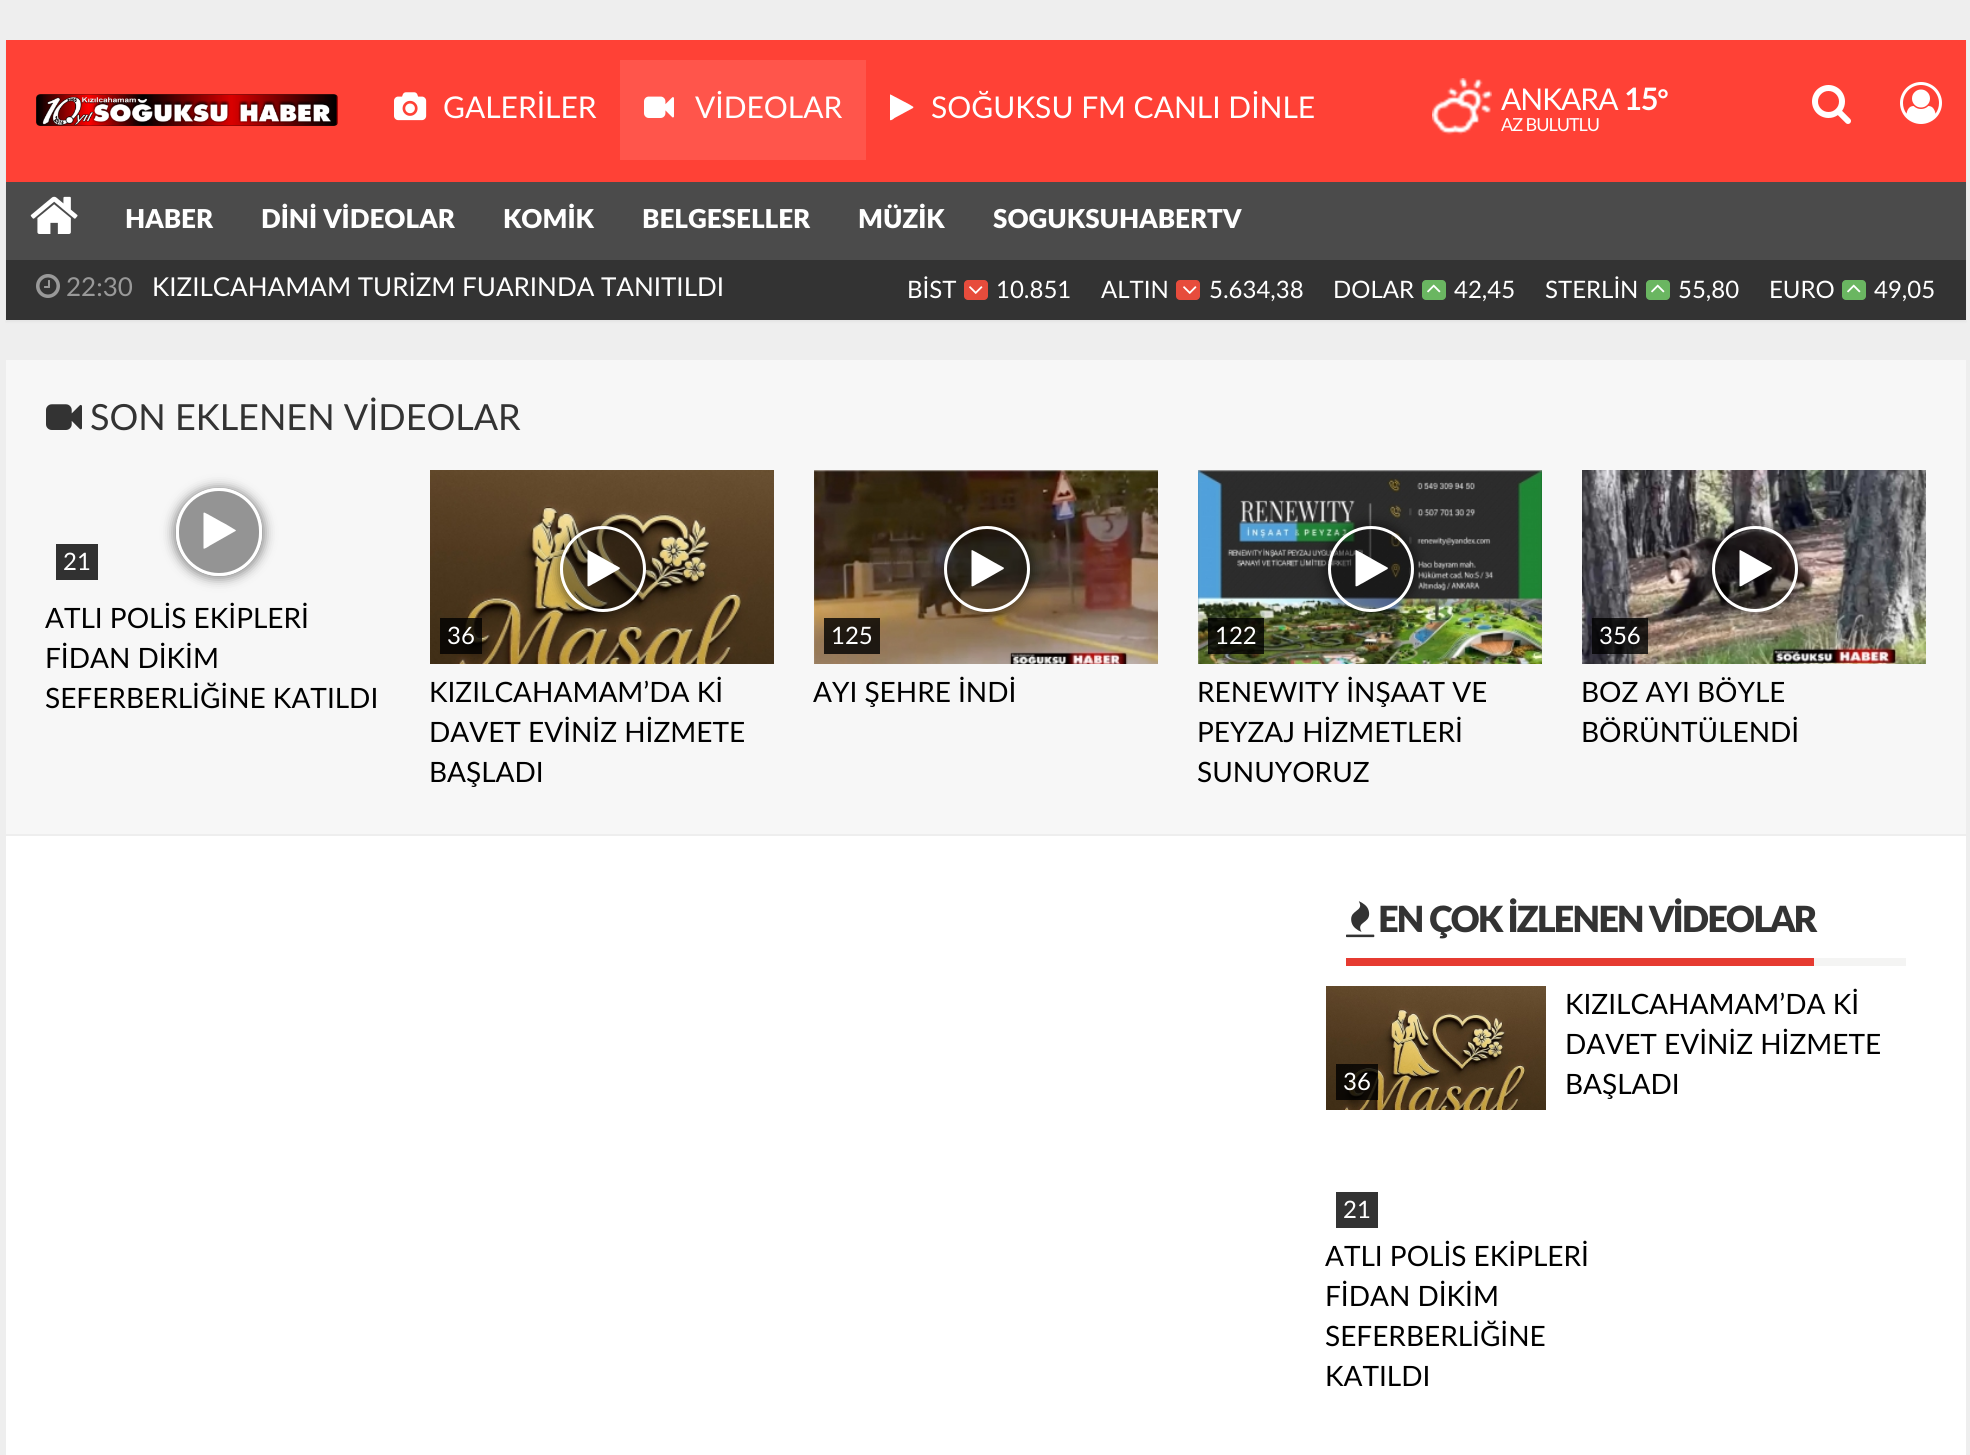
import math
import cairo

surface = cairo.ImageSurface(cairo.FORMAT_RGB24, 1970, 1455)
c = cairo.Context(surface)
options = cairo.FontOptions()
options.set_hint_metrics(cairo.HINT_METRICS_OFF)
options.set_hint_style(cairo.HINT_STYLE_NONE)
c.set_font_options(options)
c.set_miter_limit(4)
def C(code):
 c.set_source_rgb(*(v / 255 for v in bytes.fromhex(code[-6:])))
def F(family, size, italic, bold):
 c.select_font_face(family, cairo.FONT_SLANT_ITALIC if italic else cairo.FONT_SLANT_NORMAL, cairo.FONT_WEIGHT_BOLD if bold else cairo.FONT_WEIGHT_NORMAL)
 c.set_font_size(size)
def T(x, y, s):
 c.move_to(x, y)
 c.show_text(s)
def L(x, y, s, letter, word):
 c.move_to(x, y)
 for ch in s:
  c.show_text(ch)
  c.rel_move_to(letter + word * (ch == ' '), 0)
def R(x, y, w, h):
 c.rectangle(x, y, w, h)
 c.fill()
def Q(x, y, w, h, r):
 c.new_sub_path()
 for i, (u, v) in enumerate([(x + w - r, y + h - r), (x + r, y + h - r), (x + r, y + r), (x + w - r, y + r)]):
  c.arc(u, v, r, i * math.pi / 2, (i + 1) * math.pi / 2)
 c.close_path()
def S(x, y, w, h, r, blur, alpha):
 c.push_group_with_content(cairo.CONTENT_ALPHA)
 c.set_operator(cairo.OPERATOR_SOURCE)
 for i in range(15, -16, -2):
  e = blur * i / 6
  if min(w, h) + 2 * e > 0:
   c.set_source_rgba(0, 0, 0, alpha * math.erfc((i - 1) / 8.5) / 2)
   Q(x - e, y - e, w + 2 * e, h + 2 * e, max(0, min(r + e + blur * .6, min(w, h) / 2 + e)))
   c.fill()
 c.mask(c.pop_group())
def I(path, x, y, w, h):
 c.save()
 c.set_source_surface(cairo.ImageSurface.create_from_png(path), x, y)
 c.rectangle(x, y, w, h)
 c.fill()
 c.restore()
C('eeeeee')
c.paint()
C('141414')
S(6,42,1960,280,0,1,.05)
C('4b4b4b')
R(6,182,1960,78)
C('ff4136')
R(6,40,1960,142)
I('1.png',36,94,302,32)
I('2.png',394,92,33,29)
F('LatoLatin',30,0,0)
C('ffffff')
T(443,118,'GALERİLER')
C('ff554b')
R(620,60,246,100)
I('3.png',644,96,30,22)
C('ffffff')
T(695,118,'VİDEOLAR')
c.new_path()
c.move_to(913,108)
c.line_to(894.5,118)
c.curve_to(894,118.5,891,121,890,120)
c.line_to(890,94.5)
c.line_to(890.5,94.5)
c.line_to(909.5,104.5)
c.line_to(913.5,107)
c.close_path()
c.fill()
T(931,118,'SOĞUKSU FM CANLI DİNLE')
I('4.png',1432,78,60,57)
L(1501,110,'ANKARA',-1,0)
F('LatoLatin',30,0,1)
L(1624,110,'15',-1,0)
F('Liberation Sans',30,0,1)
L(1657,110,'°',-1,0)
F('LatoLatin',18,0,0)
L(1501,131,'AZ BULUTLU',-1,0)
I('5.png',1812,85,39,39)
I('6.png',1900,82,42,42)
I('7.png',30,196,48,38)
F('LatoLatin Black',26,0,0)
T(125,228,'HABER')
T(261,228,'DİNİ VİDEOLAR')
T(503,228,'KOMİK')
T(642,228,'BELGESELLER')
T(858,228,'MÜZİK')
T(993,228,'SOGUKSUHABERTV')
C('333333')
R(6,260,1960,60)
I('8.png',36,274,24,24)
F('LatoLatin',26,0,0)
C('999999')
T(66,296,'22:30')
C('ffffff')
T(152,296,'KIZILCAHAMAM TURİZM FUARINDA TANITILDI')
F('LatoLatin',24,0,0)
T(907,298,'BİST')
C('e74c3c')
Q(964,280,24,20,4)
c.fill()
I('9.png',969,286,14,8)
C('ffffff')
T(996,298,'10.851')
T(1101,298,'ALTIN')
C('e74c3c')
Q(1176,280,24,20,4)
c.fill()
I('9.png',1183,286,14,8)
C('ffffff')
T(1209,298,'5.634,38')
T(1333,298,'DOLAR')
C('6ab661')
Q(1422,280,24,20,4)
c.fill()
I('10.png',1427,284,14,9)
C('ffffff')
T(1454,298,'42,45')
T(1545,298,'STERLİN')
C('6ab661')
Q(1646,280,24,20,4)
c.fill()
I('10.png',1651,284,14,9)
C('ffffff')
T(1678,298,'55,80')
T(1769,298,'EURO')
C('6ab661')
Q(1842,280,24,20,4)
c.fill()
I('10.png',1847,284,14,9)
C('ffffff')
T(1874,298,'49,05')
R(6,836,1960,619)
C('f7f7f7')
R(6,360,1960,474)
I('11.png',46,404,36,26)
F('LatoLatin',36,0,0)
C('333333')
T(90,430,'SON EKLENEN VİDEOLAR')
C('313131')
R(56,544,42,36)
F('LatoLatin',24,0,0)
C('ffffff')
T(63,570,'21')
c.save()
c.set_fill_rule(cairo.FILL_RULE_EVEN_ODD)
c.new_path()
c.move_to(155,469)
c.line_to(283,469)
c.line_to(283,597)
c.line_to(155,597)
c.close_path()
c.move_to(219,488)
c.curve_to(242.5,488,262,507.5,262,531)
c.line_to(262,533)
c.curve_to(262,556.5,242.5,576,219,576)
c.curve_to(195.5,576,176,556.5,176,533)
c.line_to(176,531)
c.curve_to(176,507.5,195.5,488,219,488)
c.close_path()
c.clip()
C('000000')
S(174,488,90,90,45,6,.5)
c.restore()
c.set_source_rgba(0,0,0,0.4)
Q(177.5,489.5,83,85,41.5)
c.fill_preserve()
C('ffffff')
c.set_line_width(3)
c.stroke()
c.new_path()
c.move_to(235.5,531)
c.line_to(210,545.5)
c.curve_to(209,546,204.5,549.5,203.5,548.5)
c.line_to(203.5,513)
c.line_to(204,512.5)
c.curve_to(204.5,512,223,523,225.5,524)
c.line_to(235.5,530)
c.line_to(236,530.5)
c.close_path()
c.fill()
F('LatoLatin',28,0,0)
C('000000')
T(45,628,'ATLI POLİS EKİPLERİ')
T(45,668,'FİDAN DİKİM')
T(45,708,'SEFERBERLİĞİNE KATILDI')
I('12.png',430,470,344,194)
c.save()
c.set_fill_rule(cairo.FILL_RULE_EVEN_ODD)
c.new_path()
c.move_to(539,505)
c.line_to(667,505)
c.line_to(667,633)
c.line_to(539,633)
c.close_path()
c.move_to(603,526)
c.curve_to(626.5,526,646,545.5,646,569)
c.curve_to(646,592.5,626.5,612,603,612)
c.curve_to(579.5,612,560,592.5,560,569)
c.curve_to(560,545.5,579.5,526,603,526)
c.close_path()
c.clip()
C('000000')
S(558,524,90,90,45,6,.5)
c.restore()
c.set_source_rgba(0,0,0,0.4)
c.arc(603,569,41.5,0,2 * math.pi)
c.fill_preserve()
C('ffffff')
c.stroke()
c.new_path()
c.move_to(619.5,569)
c.line_to(594,583.5)
c.curve_to(593,583.5,588.5,587.5,587.5,586)
c.line_to(587.5,550.5)
c.line_to(588,550)
c.curve_to(588.5,550,607,560.5,609.5,562)
c.line_to(619.5,567.5)
c.line_to(620,568)
c.close_path()
c.fill()
c.set_source_rgba(0,0,0,0.8)
R(440,618,42,36)
F('LatoLatin',24,0,0)
C('ffffff')
T(447,644,'36')
F('LatoLatin',28,0,0)
C('000000')
T(429,702,'KIZILCAHAMAM’DA Kİ')
T(429,742,'DAVET EVİNİZ HİZMETE')
T(429,782,'BAŞLADI')
I('13.png',814,470,344,194)
c.save()
c.set_fill_rule(cairo.FILL_RULE_EVEN_ODD)
c.new_path()
c.move_to(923,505)
c.line_to(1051,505)
c.line_to(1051,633)
c.line_to(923,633)
c.close_path()
c.move_to(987,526)
c.curve_to(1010.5,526,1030,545.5,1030,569)
c.curve_to(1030,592.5,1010.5,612,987,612)
c.curve_to(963.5,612,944,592.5,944,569)
c.curve_to(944,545.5,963.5,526,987,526)
c.close_path()
c.clip()
C('000000')
S(942,524,90,90,45,6,.5)
c.restore()
c.set_source_rgba(0,0,0,0.4)
c.arc(987,569,41.5,0,2 * math.pi)
c.fill_preserve()
C('ffffff')
c.stroke()
c.new_path()
c.move_to(1003.5,569)
c.line_to(978,583.5)
c.curve_to(977,583.5,972.5,587.5,971.5,586)
c.line_to(971.5,550.5)
c.line_to(972,550)
c.curve_to(972.5,550,991,560.5,993.5,562)
c.line_to(1003.5,567.5)
c.line_to(1004,568)
c.close_path()
c.fill()
c.set_source_rgba(0,0,0,0.8)
R(824,618,56,36)
F('LatoLatin',24,0,0)
C('ffffff')
T(831,644,'125')
F('LatoLatin',28,0,0)
C('000000')
T(813,702,'AYI ŞEHRE İNDİ')
I('14.png',1198,470,344,194)
c.save()
c.set_fill_rule(cairo.FILL_RULE_EVEN_ODD)
c.new_path()
c.move_to(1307,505)
c.line_to(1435,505)
c.line_to(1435,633)
c.line_to(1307,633)
c.close_path()
c.move_to(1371,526)
c.curve_to(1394.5,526,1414,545.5,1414,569)
c.curve_to(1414,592.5,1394.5,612,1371,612)
c.curve_to(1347.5,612,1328,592.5,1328,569)
c.curve_to(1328,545.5,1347.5,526,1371,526)
c.close_path()
c.clip()
C('000000')
S(1326,524,90,90,45,6,.5)
c.restore()
c.set_source_rgba(0,0,0,0.4)
c.arc(1371,569,41.5,0,2 * math.pi)
c.fill_preserve()
C('ffffff')
c.stroke()
c.new_path()
c.move_to(1387.5,569)
c.line_to(1362,583.5)
c.curve_to(1361,583.5,1356.5,587.5,1355.5,586)
c.line_to(1355.5,550.5)
c.line_to(1356,550)
c.curve_to(1356.5,550,1375,560.5,1377.5,562)
c.line_to(1387.5,567.5)
c.line_to(1388,568)
c.close_path()
c.fill()
c.set_source_rgba(0,0,0,0.8)
R(1208,618,56,36)
F('LatoLatin',24,0,0)
C('ffffff')
T(1215,644,'122')
F('LatoLatin',28,0,0)
C('000000')
T(1197,702,'RENEWITY İNŞAAT VE')
T(1197,742,'PEYZAJ HİZMETLERİ')
T(1197,782,'SUNUYORUZ')
I('15.png',1582,470,344,194)
c.save()
c.set_fill_rule(cairo.FILL_RULE_EVEN_ODD)
c.new_path()
c.move_to(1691,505)
c.line_to(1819,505)
c.line_to(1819,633)
c.line_to(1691,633)
c.close_path()
c.move_to(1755,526)
c.curve_to(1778.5,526,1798,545.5,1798,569)
c.curve_to(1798,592.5,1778.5,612,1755,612)
c.curve_to(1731.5,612,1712,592.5,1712,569)
c.curve_to(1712,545.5,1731.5,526,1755,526)
c.close_path()
c.clip()
C('000000')
S(1710,524,90,90,45,6,.5)
c.restore()
c.set_source_rgba(0,0,0,0.4)
c.arc(1755,569,41.5,0,2 * math.pi)
c.fill_preserve()
C('ffffff')
c.stroke()
c.new_path()
c.move_to(1771.5,569)
c.line_to(1746,583.5)
c.curve_to(1745,583.5,1740.5,587.5,1739.5,586)
c.line_to(1739.5,550.5)
c.line_to(1740,550)
c.curve_to(1740.5,550,1759,560.5,1761.5,562)
c.line_to(1771.5,567.5)
c.line_to(1772,568)
c.close_path()
c.fill()
c.set_source_rgba(0,0,0,0.8)
R(1592,618,56,36)
F('LatoLatin',24,0,0)
C('ffffff')
T(1599,644,'356')
F('LatoLatin',28,0,0)
C('000000')
T(1581,702,'BOZ AYI BÖYLE')
T(1581,742,'BÖRÜNTÜLENDİ')
C('f4f4f3')
R(1814,958,92,8)
C('e63b31')
R(1346,958,468,8)
I('16.png',1346,901,29,37)
F('LatoLatin Black',36,0,0)
C('333333')
L(1378,932,'EN ÇOK İZLENEN VİDEOLAR',-2,0)
I('17.png',1326,986,220,124)
c.set_source_rgba(0,0,0,0.8)
R(1336,1064,42,36)
F('LatoLatin',24,0,0)
C('ffffff')
T(1343,1090,'36')
F('LatoLatin',28,0,0)
C('000000')
T(1565,1014,'KIZILCAHAMAM’DA Kİ')
T(1565,1054,'DAVET EVİNİZ HİZMETE')
T(1565,1094,'BAŞLADI')
C('333333')
R(1336,1192,42,36)
F('LatoLatin',24,0,0)
C('ffffff')
T(1343,1218,'21')
F('LatoLatin',28,0,0)
C('000000')
T(1325,1266,'ATLI POLİS EKİPLERİ')
T(1325,1306,'FİDAN DİKİM')
T(1325,1346,'SEFERBERLİĞİNE')
T(1325,1386,'KATILDI')
surface.write_to_png('o.png')
